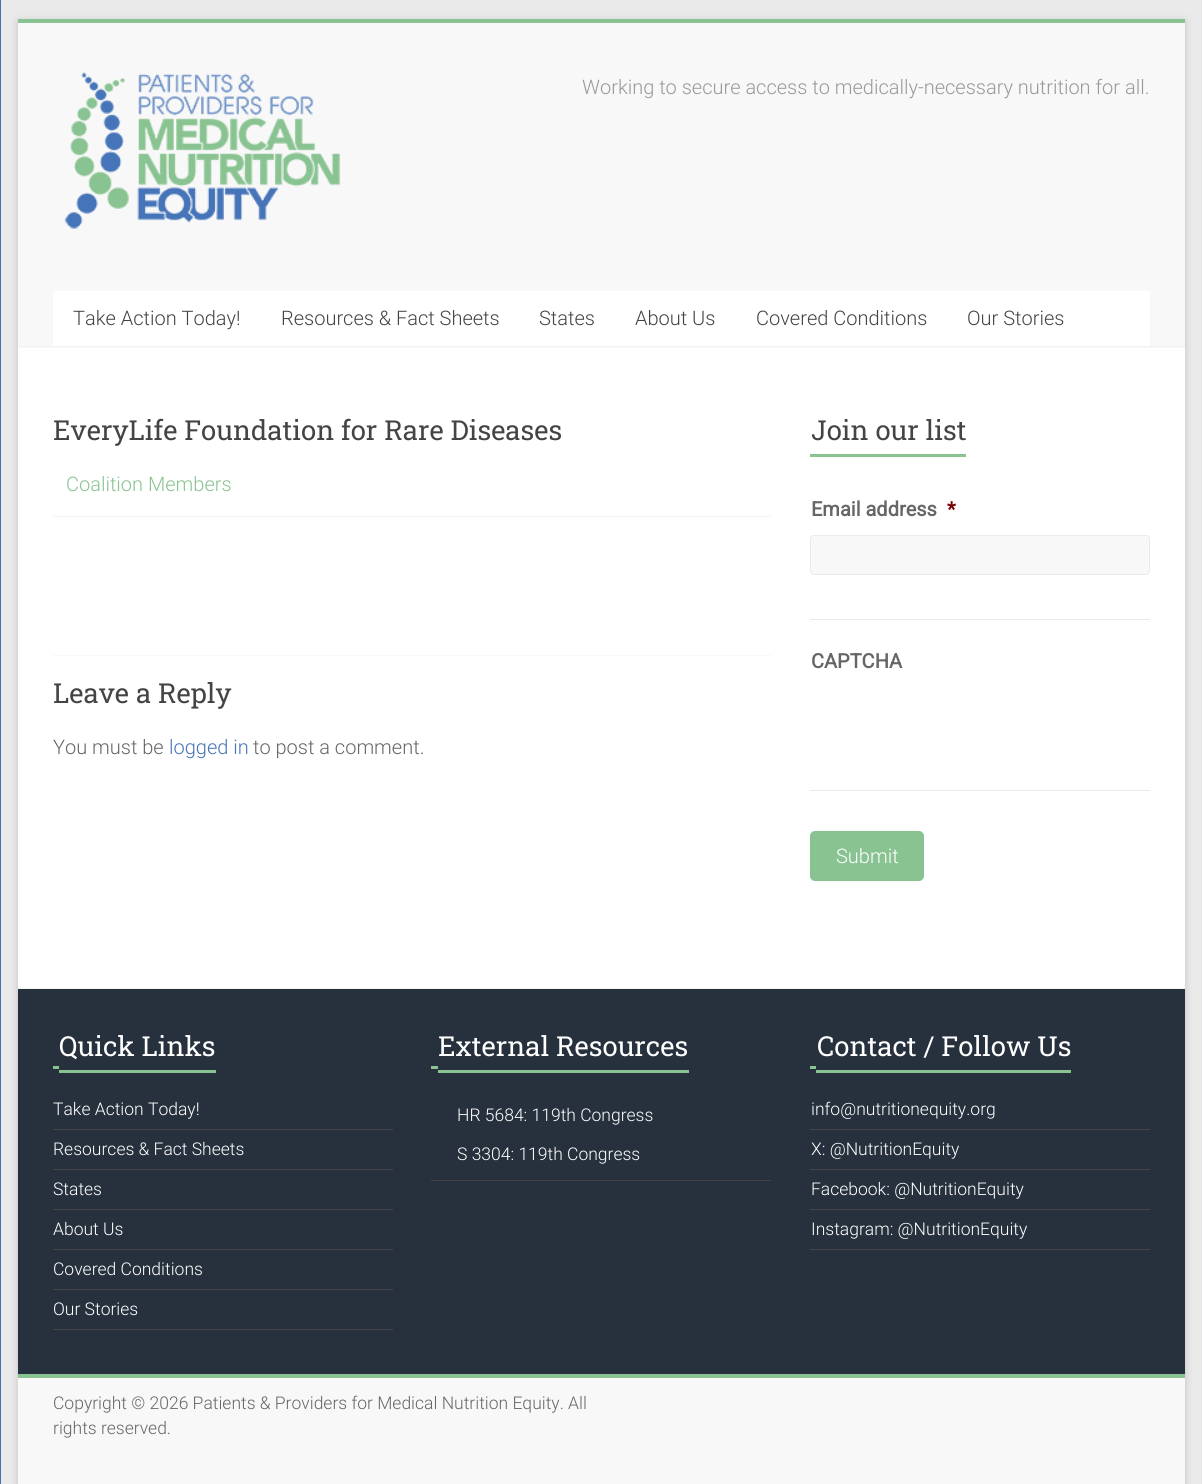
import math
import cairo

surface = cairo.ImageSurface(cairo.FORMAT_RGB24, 1202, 1484)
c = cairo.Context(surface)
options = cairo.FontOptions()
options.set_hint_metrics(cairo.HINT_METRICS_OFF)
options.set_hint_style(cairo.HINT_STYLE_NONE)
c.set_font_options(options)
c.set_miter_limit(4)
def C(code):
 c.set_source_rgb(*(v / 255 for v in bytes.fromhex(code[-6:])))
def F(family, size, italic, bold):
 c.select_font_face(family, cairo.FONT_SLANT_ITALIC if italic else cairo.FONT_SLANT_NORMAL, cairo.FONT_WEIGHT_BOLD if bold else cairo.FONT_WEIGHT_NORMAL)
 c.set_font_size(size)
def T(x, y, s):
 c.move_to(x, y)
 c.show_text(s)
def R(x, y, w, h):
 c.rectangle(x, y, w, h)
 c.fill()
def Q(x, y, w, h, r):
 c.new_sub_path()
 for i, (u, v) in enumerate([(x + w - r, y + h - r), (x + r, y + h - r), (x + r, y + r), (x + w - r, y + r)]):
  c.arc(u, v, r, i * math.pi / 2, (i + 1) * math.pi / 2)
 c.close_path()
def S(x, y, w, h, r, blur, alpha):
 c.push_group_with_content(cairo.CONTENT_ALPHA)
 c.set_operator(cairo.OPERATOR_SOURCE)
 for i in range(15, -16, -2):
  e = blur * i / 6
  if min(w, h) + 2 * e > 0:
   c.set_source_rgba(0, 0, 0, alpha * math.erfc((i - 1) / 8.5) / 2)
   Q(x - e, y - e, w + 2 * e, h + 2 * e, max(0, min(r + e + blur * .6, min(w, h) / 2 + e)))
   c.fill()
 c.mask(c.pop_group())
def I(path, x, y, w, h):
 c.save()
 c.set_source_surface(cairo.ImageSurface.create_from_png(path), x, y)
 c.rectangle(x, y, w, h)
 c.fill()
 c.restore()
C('eaeaea')
c.paint()
C('4770ae')
R(0,0,1,1484)
C('646464')
S(18,21,1167,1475,0,4,.3)
C('ffffff')
R(18,348,1167,640)
C('89c391')
R(18,19,1167,4)
C('f8f8f8')
R(18,23,1167,325)
C('f2f2f2')
R(18,346,1167,1)
I('1.png',64,72,277,157)
F('Roboto Light',20,0,0)
C('999999')
T(582,94,'Working to secure access to medically-necessary nutrition for all.')
C('ffffff')
R(53,291,1097,55)
C('444444')
T(73,325,'Take Action Today!')
T(281,325,'Resources & Fact Sheets')
T(539,325,'States')
T(635,325,'About Us')
T(756,325,'Covered Conditions')
T(967,325,'Our Stories')
F('Roboto Slab',27.5,0,0)
T(53,440,'EveryLife Foundation for Rare Diseases')
F('Roboto Light',20,0,0)
C('89c391')
T(66,491,'Coalition Members')
C('f2f2f2')
R(53,516,718,1)
C('f8f8f8')
R(53,655,718,1)
F('Roboto Slab',27.5,0,0)
C('444444')
T(53,703,'Leave a Reply')
F('Roboto Light',20,0,0)
C('666666')
T(53,754,'You must be')
C('4674b8')
T(169,754,'logged in')
C('666666')
T(253,754,'to post a comment.')
F('Roboto Slab',27.5,0,0)
C('444444')
T(811,440,'Join our list')
C('89c391')
R(810,454,156,3)
C('eaeaea')
R(810,619,340,1)
F('Roboto',20,0,1)
C('666666')
T(811,516,'Email address')
C('790000')
T(947,516,'*')
C('f8f8f8')
Q(810.5,535.5,339,39,3.5)
c.fill_preserve()
C('eaeaea')
c.set_line_width(1)
c.stroke()
R(810,790,340,1)
C('666666')
T(811,668,'CAPTCHA')
C('89c391')
Q(810,831,114,50,5)
c.fill()
F('Roboto Light',20,0,0)
C('ffffff')
T(836,863,'Submit')
C('27313d')
R(18,989,1167,385)
C('f2f2f2')
R(18,988,1167,1)
F('Roboto Slab',27.5,0,0)
C('ffffff')
T(59,1056,'Quick Links')
C('89c391')
R(53,1066,6,3)
R(59,1070,157,3)
C('444444')
R(53,1129,340,1)
F('Roboto Light',17.5,0,0)
C('ffffff')
T(53,1115,'Take Action Today!')
C('444444')
R(53,1169,340,1)
C('ffffff')
T(53,1155,'Resources & Fact Sheets')
C('444444')
R(53,1209,340,1)
C('ffffff')
T(53,1195,'States')
C('444444')
R(53,1249,340,1)
C('ffffff')
T(53,1235,'About Us')
C('444444')
R(53,1289,340,1)
C('ffffff')
T(53,1275,'Covered Conditions')
C('444444')
R(53,1329,340,1)
C('ffffff')
T(53,1315,'Our Stories')
F('Roboto Slab',27.5,0,0)
T(438,1056,'External Resources')
C('89c391')
R(431,1066,7,3)
R(438,1070,251,3)
C('444444')
R(431,1180,340,1)
F('Roboto Light',17.5,0,0)
C('ffffff')
T(457,1121,'HR 5684: 119th Congress')
T(457,1160,'S 3304: 119th Congress')
F('Roboto Slab',27.5,0,0)
T(817,1056,'Contact / Follow Us')
C('89c391')
R(810,1066,6,3)
R(816,1070,255,3)
C('444444')
R(810,1129,340,1)
F('Roboto Light',17.5,0,0)
C('ffffff')
T(811,1115,'info@nutritionequity.org')
C('444444')
R(810,1169,340,1)
C('ffffff')
T(811,1155,'X: @NutritionEquity')
C('444444')
R(810,1209,340,1)
C('ffffff')
T(811,1195,'Facebook: @NutritionEquity')
C('444444')
R(810,1249,340,1)
C('ffffff')
T(811,1235,'Instagram: @NutritionEquity')
C('f8f8f8')
R(18,1378,1167,106)
C('89c391')
R(18,1374,1167,4)
C('666666')
T(53,1409,'Copyright © 2026 Patients & Providers for Medical Nutrition Equity. All')
T(53,1434,'rights reserved.')
surface.write_to_png('o.png')
